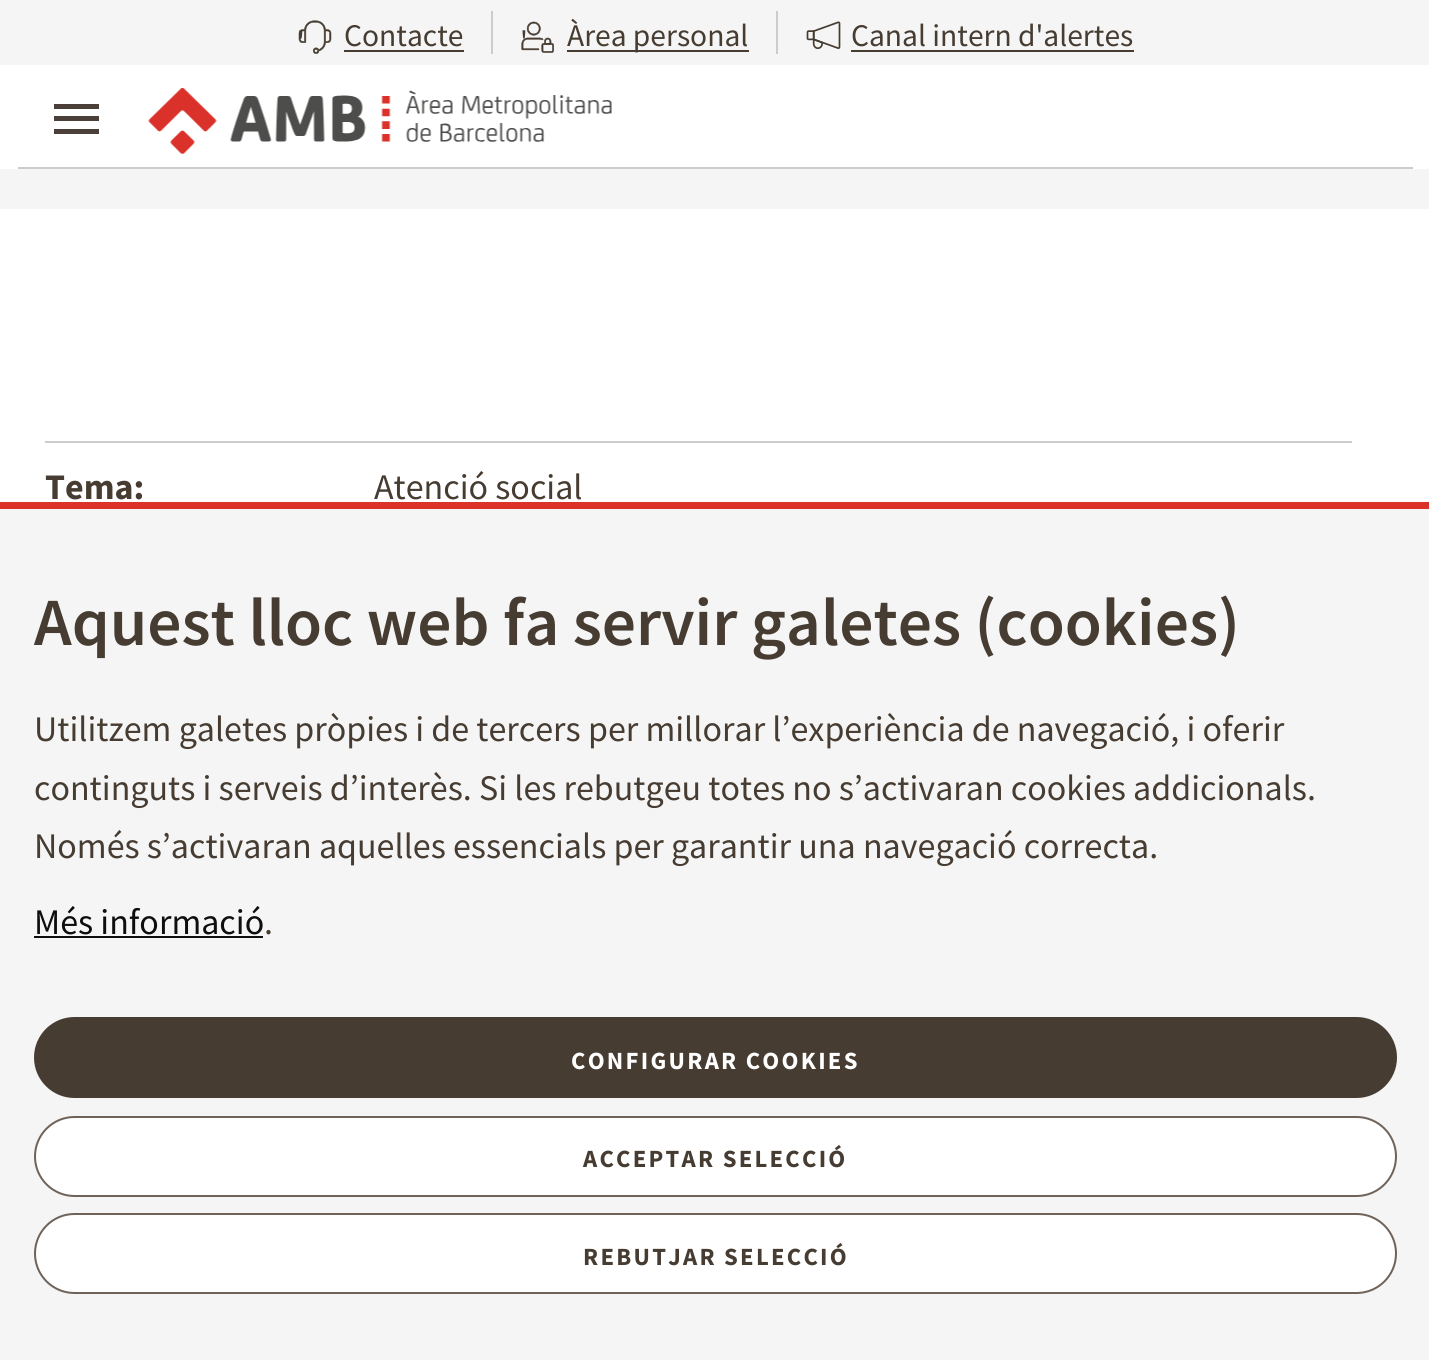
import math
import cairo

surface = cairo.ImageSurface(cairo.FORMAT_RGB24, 1429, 1360)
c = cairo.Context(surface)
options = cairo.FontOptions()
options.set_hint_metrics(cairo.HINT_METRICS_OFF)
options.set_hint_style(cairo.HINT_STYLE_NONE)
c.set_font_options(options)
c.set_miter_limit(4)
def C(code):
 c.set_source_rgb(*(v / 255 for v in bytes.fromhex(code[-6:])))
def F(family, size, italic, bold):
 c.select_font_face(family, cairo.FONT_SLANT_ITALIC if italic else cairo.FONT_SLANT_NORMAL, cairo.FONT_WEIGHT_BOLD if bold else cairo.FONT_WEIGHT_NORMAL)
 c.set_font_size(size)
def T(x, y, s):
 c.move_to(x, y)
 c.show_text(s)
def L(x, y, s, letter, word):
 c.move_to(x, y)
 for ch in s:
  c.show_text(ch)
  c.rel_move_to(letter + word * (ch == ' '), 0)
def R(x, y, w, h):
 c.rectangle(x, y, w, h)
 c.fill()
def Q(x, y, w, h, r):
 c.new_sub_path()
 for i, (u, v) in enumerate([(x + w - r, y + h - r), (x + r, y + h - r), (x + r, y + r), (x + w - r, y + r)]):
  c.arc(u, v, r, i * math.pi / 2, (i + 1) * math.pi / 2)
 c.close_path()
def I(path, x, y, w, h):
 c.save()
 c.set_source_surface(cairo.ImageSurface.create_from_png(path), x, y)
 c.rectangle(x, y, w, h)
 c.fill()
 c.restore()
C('ffffff')
c.paint()
C('f5f5f5')
R(0,0,1429,65)
C('cccccc')
R(491,11,2,43)
I('1.png',298,20,34,34)
F('Source Sans Pro',31.5,0,0)
C('463c32')
T(297,52,'\'')
T(344,46,'Contacte')
R(344,50,120,2)
C('cccccc')
R(776,11,2,43)
I('2.png',521,21,33,32)
C('463c32')
T(520,52,'\'')
R(567,50,182,2)
T(567,46,'Àrea personal')
I('3.png',806,21,35,29)
T(851,46,'Canal intern d\'alertes')
R(851,50,283,2)
C('cccccc')
R(18,167,1395,2)
C('4a4039')
c.new_path()
c.move_to(54,134)
c.line_to(54,129)
c.line_to(99,129)
c.line_to(99,134)
c.close_path()
c.move_to(54,121)
c.line_to(54,116)
c.line_to(99,116)
c.line_to(99,121)
c.close_path()
c.move_to(54,104)
c.line_to(99,104)
c.line_to(99,109)
c.line_to(54,109)
c.close_path()
c.fill()
I('4.png',148,88,464,66)
C('f5f5f5')
R(0,169,1429,40)
C('cccccc')
R(45,441,1307,2)
F('Source Sans Pro',36,0,1)
C('463c32')
T(45,499,'Tema:')
F('Source Sans Pro',36,0,0)
T(374,499,'Atenció social')
C('f5f5f5')
R(0,509,1429,851)
C('db322a')
R(0,502,1429,7)
F('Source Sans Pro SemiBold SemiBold',67.5,0,0)
C('463c32')
T(34,645,'Aquest lloc web fa servir galetes (cookies)')
F('Source Sans Pro',36,0,0)
T(34,741,'Utilitzem galetes pròpies i de tercers per millorar l’experiència de navegació, i oferir')
T(34,800,'continguts i serveis d’interès. Si les rebutgeu totes no s’activaran cookies addicionals.')
T(34,858,'Només s’activaran aquelles essencials per garantir una navegació correcta.')
C('0e0e0e')
T(34,934,'Més informació')
R(34,936,229,2)
C('463c32')
T(264,934,'.')
Q(35,1018,1361,79,39.5)
c.fill_preserve()
c.stroke()
F('Source Sans Pro',24.75,0,1)
C('ffffff')
L(571,1069,'CONFIGURAR COOKIES',2.25,0)
Q(35,1117,1361,79,39.5)
c.fill_preserve()
C('6e6259')
c.stroke()
C('463c32')
L(583,1167,'ACCEPTAR SELECCIÓ',2.25,0)
C('ffffff')
Q(35,1214,1361,79,39.5)
c.fill_preserve()
C('6e6259')
c.stroke()
C('463c32')
L(583,1265,'REBUTJAR SELECCIÓ',2.25,0)
surface.write_to_png('o.png')
